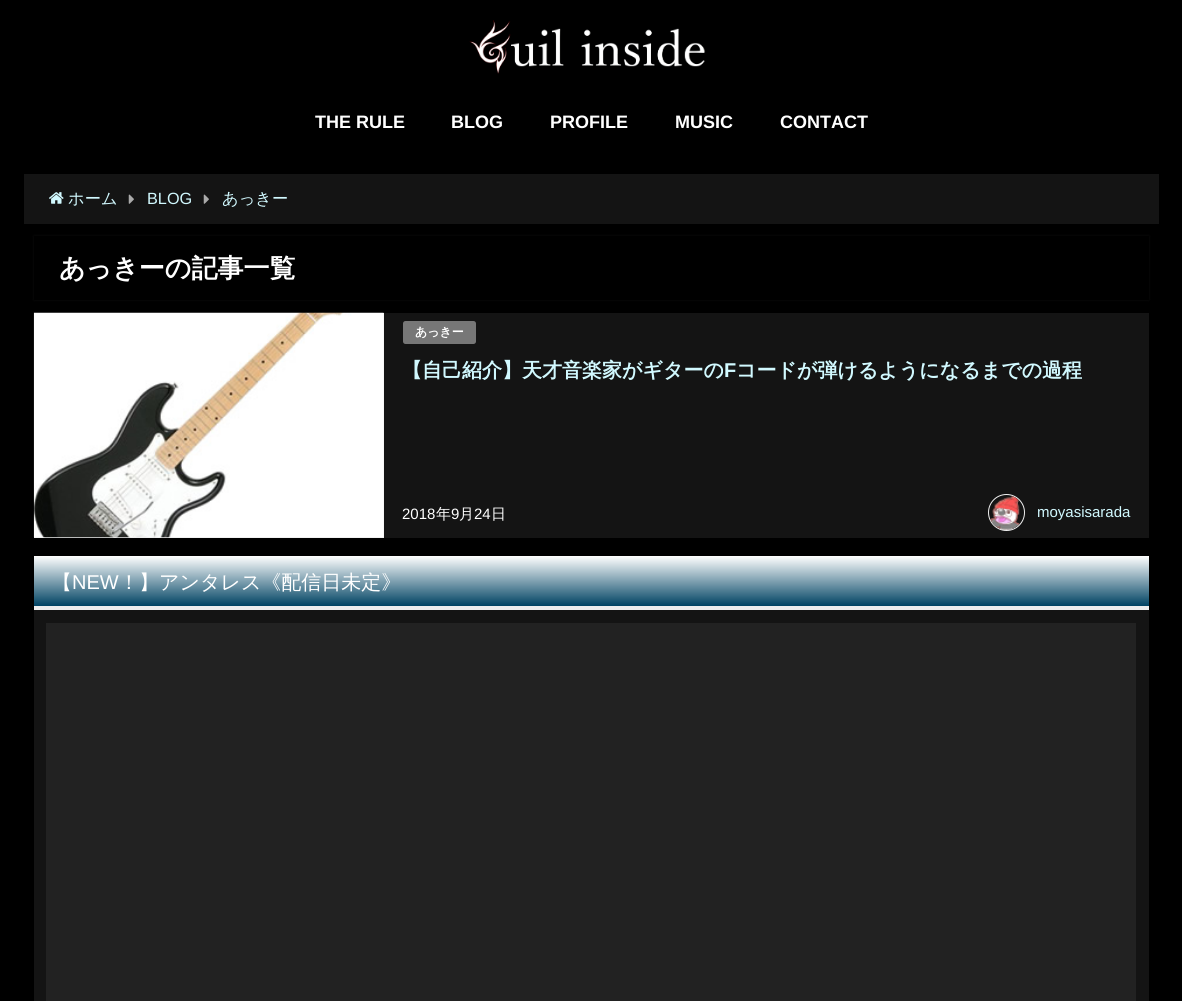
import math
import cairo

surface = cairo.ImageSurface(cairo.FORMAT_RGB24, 1182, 1001)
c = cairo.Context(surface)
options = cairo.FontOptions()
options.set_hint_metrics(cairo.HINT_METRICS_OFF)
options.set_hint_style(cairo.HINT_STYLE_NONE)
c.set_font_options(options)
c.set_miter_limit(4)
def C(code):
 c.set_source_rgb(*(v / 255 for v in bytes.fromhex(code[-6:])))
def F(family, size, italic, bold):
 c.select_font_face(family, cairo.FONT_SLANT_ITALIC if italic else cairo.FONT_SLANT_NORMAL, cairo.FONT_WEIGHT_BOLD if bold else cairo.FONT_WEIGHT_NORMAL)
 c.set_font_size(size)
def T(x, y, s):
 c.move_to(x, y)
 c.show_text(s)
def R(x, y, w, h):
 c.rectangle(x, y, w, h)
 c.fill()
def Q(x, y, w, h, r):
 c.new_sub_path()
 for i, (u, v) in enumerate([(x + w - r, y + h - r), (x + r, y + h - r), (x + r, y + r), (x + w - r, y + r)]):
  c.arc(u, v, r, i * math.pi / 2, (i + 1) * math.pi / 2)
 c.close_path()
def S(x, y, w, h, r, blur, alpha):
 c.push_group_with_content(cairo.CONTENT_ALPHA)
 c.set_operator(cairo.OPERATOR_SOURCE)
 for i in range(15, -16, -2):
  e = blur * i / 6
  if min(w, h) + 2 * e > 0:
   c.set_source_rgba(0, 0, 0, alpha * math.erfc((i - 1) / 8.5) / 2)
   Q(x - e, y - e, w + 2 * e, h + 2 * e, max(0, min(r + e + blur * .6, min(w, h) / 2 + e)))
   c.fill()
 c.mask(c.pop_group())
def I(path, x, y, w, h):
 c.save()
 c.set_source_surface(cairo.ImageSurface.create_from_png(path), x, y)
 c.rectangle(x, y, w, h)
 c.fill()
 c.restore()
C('000000')
c.paint()
I('1.png',469,20,237,54)
F('Liberation Sans',18,0,1)
C('ffffff')
T(315,128,'THE RULE')
T(451,128,'BLOG')
T(550,128,'PROFILE')
T(675,128,'MUSIC')
T(780,128,'CONTACT')
c.set_source_rgba(0.086,0.086,0.086,0.95)
R(24,174,1135,50)
I('2.png',49,192,15,12)
F('WenQuanYi Zen Hei Medium',16.25,0,0)
C('d1f9ff')
T(68,204,'ホーム')
I('3.png',128,194,6,10)
F('Liberation Sans',16.25,0,0)
T(147,204,'BLOG')
I('3.png',203,194,6,10)
F('WenQuanYi Zen Hei Medium',16.25,0,0)
T(222,204,'あっきー')
C('969696')
S(34,236,1115,64,0,1,.1)
C('000000')
R(34,236,1115,64)
F('WenQuanYi Zen Hei',26,0,1)
C('ffffff')
T(59,277,'あっきーの記事一覧')
c.set_source_rgba(0.086,0.086,0.086,0.95)
R(384,313,765,225)
C('eeeeee')
R(34,313,350,225)
I('4.png',33,312,351,226)
C('777777')
Q(403,321,73,23,2.5)
c.fill()
F('WenQuanYi Zen Hei',12,0,1)
C('ffffff')
T(415,336,'あっきー')
F('WenQuanYi Zen Hei',20,0,1)
C('d1f9ff')
T(402,377,'【自己紹介】天才音楽家がギターの')
F('Liberation Sans',20,0,1)
T(724,377,'F')
F('WenQuanYi Zen Hei',20,0,1)
T(736,377,'コードが弾けるようになるまでの過程')
F('Liberation Sans',15,0,0)
C('ffffff')
T(402,519,'2018')
F('WenQuanYi Zen Hei Medium',15,0,0)
T(436,519,'年')
F('Liberation Sans',15,0,0)
T(451,519,'9')
F('WenQuanYi Zen Hei Medium',15,0,0)
T(459,519,'月')
F('Liberation Sans',15,0,0)
T(474,519,'24')
F('WenQuanYi Zen Hei Medium',15,0,0)
T(491,519,'日')
c.new_path()
c.arc(1006.5,512.5,18,0,2 * math.pi)
C('eeeeee')
c.set_line_width(1)
c.stroke()
I('5.png',990,496,30,34)
F('Liberation Sans',15,0,0)
C('d1f9ff')
T(1037,517,'moyasisarada')
c.set_source_rgba(0.086,0.086,0.086,0.95)
R(34,610,1115,391)
gradient = cairo.LinearGradient(591,556,591,606)
gradient.add_color_stop_rgba(0,1,1,1,1)
gradient.add_color_stop_rgba(1,0,0.263,0.388,1)
c.set_source(gradient)
R(34,556,1115,50)
C('eeeeee')
R(34,606,1115,4)
F('WenQuanYi Zen Hei Medium',20,0,0)
C('ffffff')
T(52,589,'【')
F('Liberation Sans',20,0,0)
T(72,589,'NEW')
F('WenQuanYi Zen Hei Medium',20,0,0)
T(119,589,'！】アンタレス《配信日未定》')
C('222222')
R(46,623,1090,378)
surface.write_to_png('o.png')
